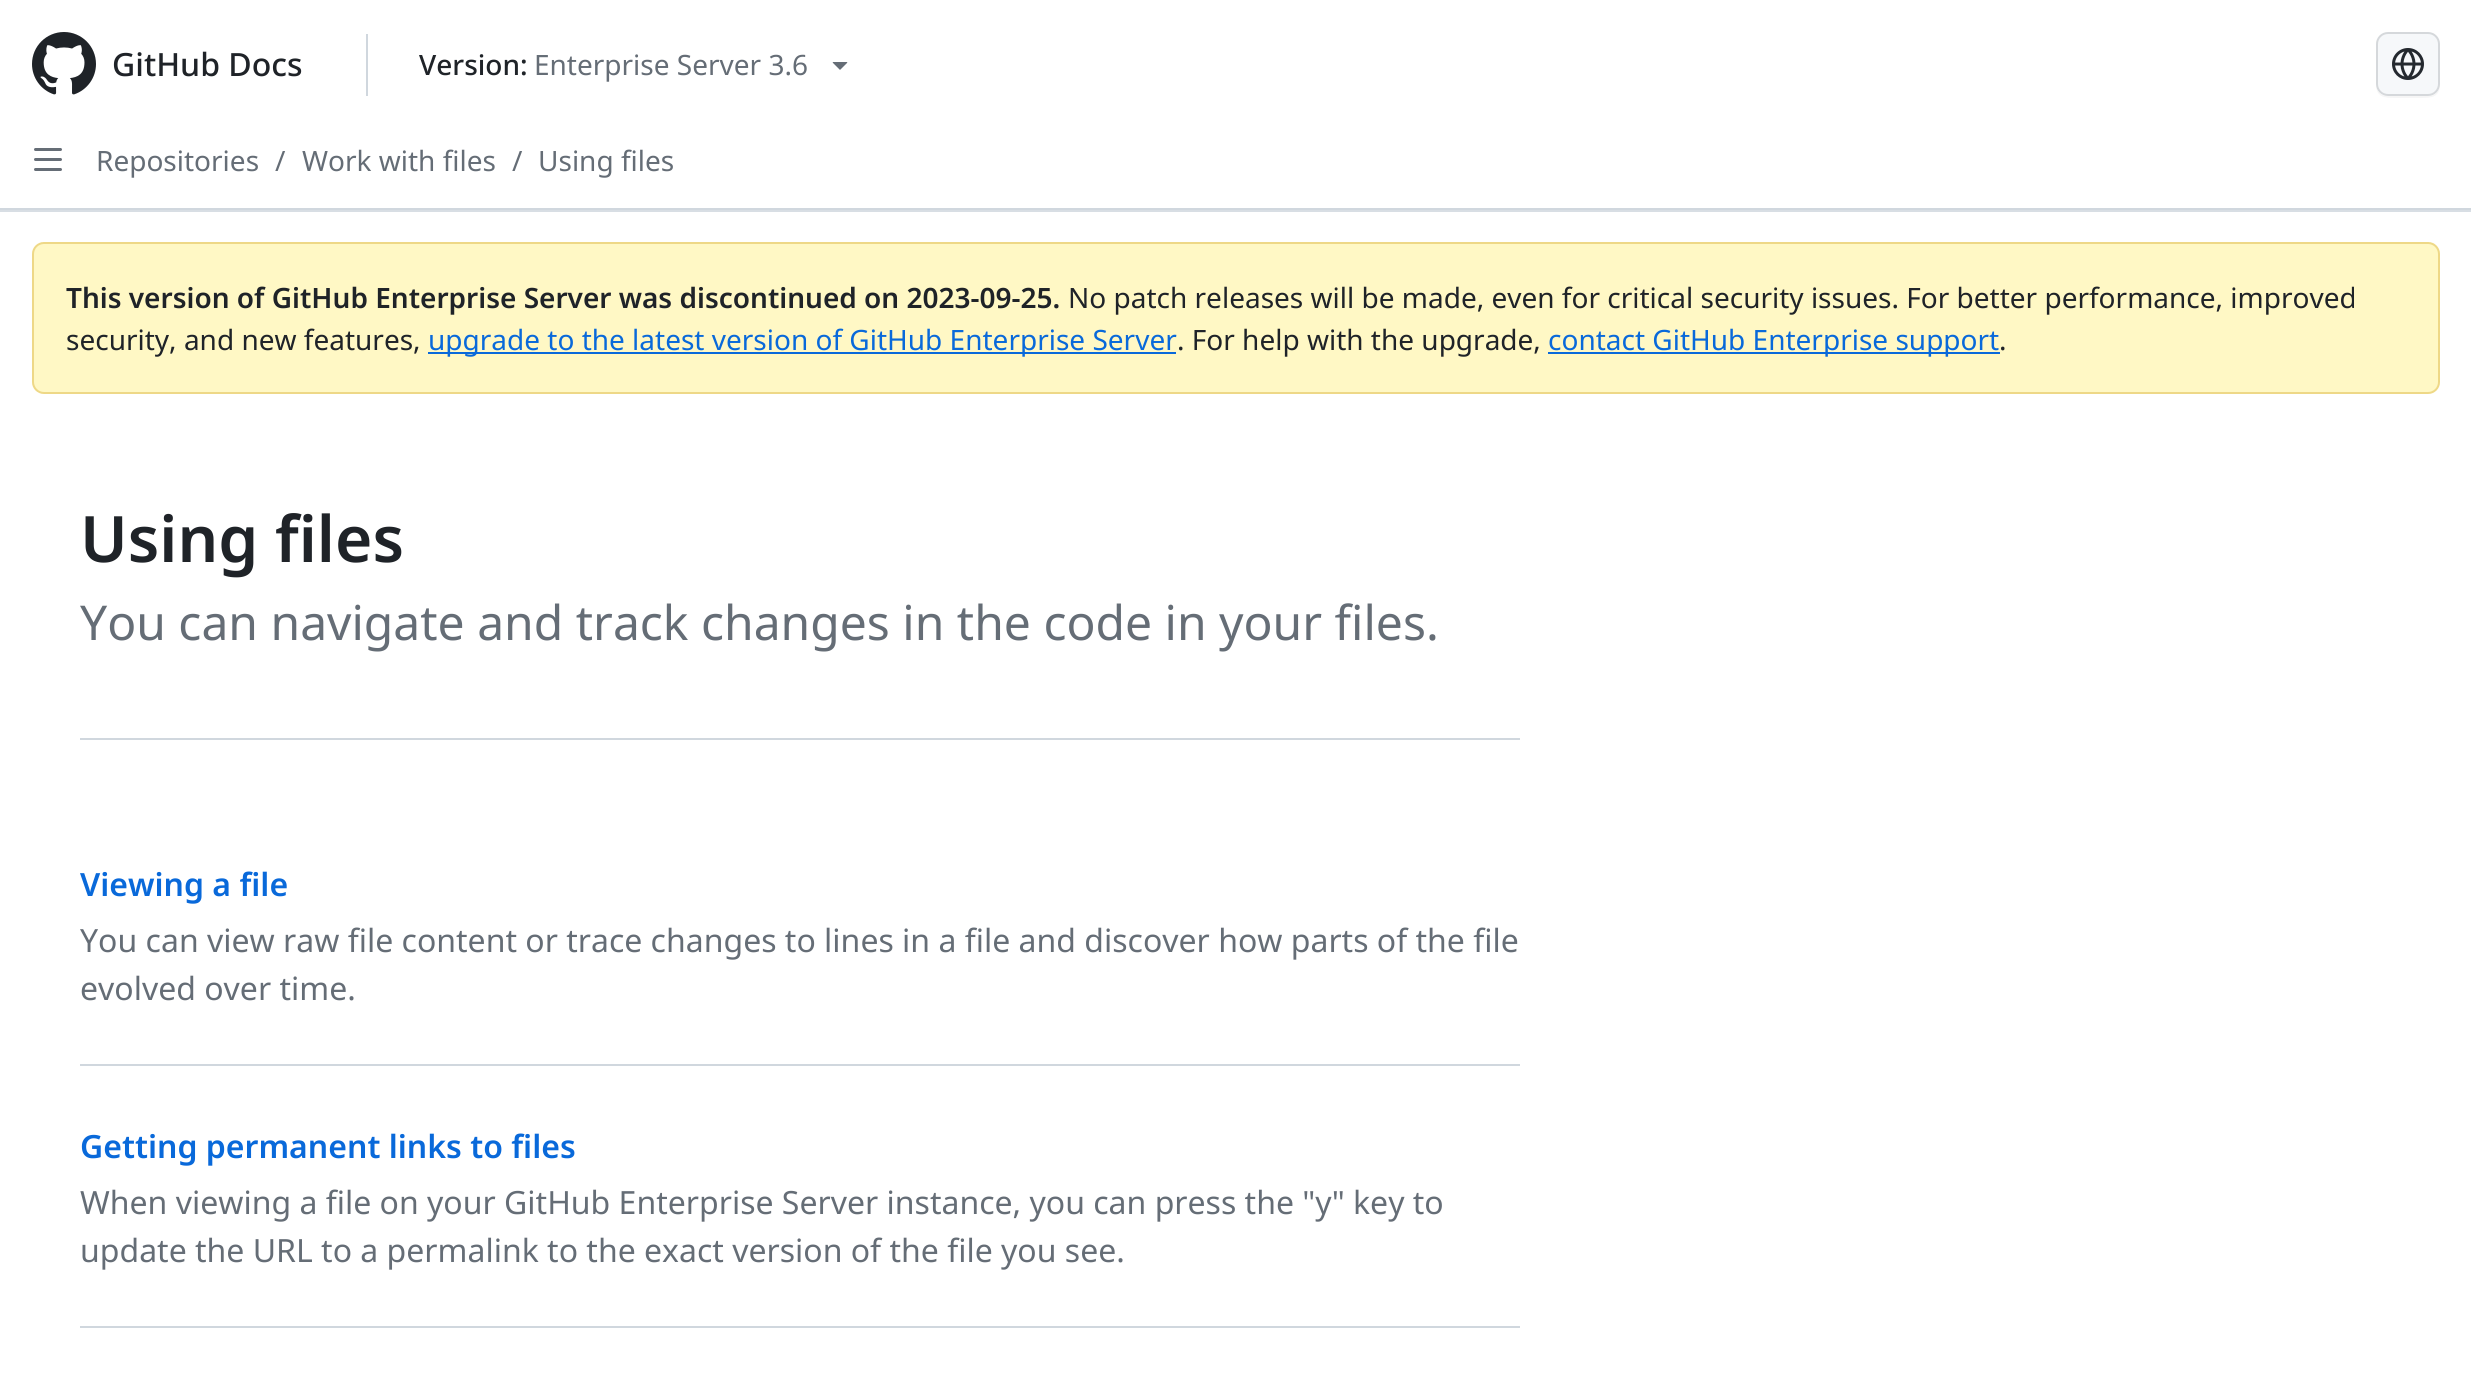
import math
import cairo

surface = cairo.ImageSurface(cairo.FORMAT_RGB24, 2471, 1391)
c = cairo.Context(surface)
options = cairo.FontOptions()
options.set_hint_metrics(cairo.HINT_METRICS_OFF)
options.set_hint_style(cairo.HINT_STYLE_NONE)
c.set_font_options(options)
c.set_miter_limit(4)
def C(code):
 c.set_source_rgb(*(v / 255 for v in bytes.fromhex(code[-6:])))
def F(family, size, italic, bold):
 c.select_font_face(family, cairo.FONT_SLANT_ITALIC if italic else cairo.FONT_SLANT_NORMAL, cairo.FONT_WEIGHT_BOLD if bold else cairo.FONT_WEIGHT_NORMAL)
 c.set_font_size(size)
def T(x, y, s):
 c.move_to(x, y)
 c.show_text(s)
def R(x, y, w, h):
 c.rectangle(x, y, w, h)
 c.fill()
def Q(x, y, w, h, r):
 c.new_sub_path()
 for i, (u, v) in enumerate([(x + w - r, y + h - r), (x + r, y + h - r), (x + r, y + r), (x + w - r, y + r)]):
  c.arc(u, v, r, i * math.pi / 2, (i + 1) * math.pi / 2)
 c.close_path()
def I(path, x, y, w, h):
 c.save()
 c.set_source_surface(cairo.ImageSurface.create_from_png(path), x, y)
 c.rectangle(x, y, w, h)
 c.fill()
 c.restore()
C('ffffff')
c.paint()
C('d8dee4')
R(0,210,2471,2)
C('d0d7de')
R(0,208,2471,2)
I('1.png',32,32,64,63)
F('Noto Sans Medium',32,0,0)
C('1f2328')
T(112,76,'GitHub Docs')
C('d0d7de')
R(366,34,2,62)
F('Noto Sans Medium',28,0,0)
C('1f2328')
T(419,75,'Version:')
F('Noto Sans',28,0,0)
C('656d76')
T(534,75,'Enterprise Server 3.6')
I('2.png',832,62,16,8)
C('f6f6f6')
c.new_path()
c.move_to(2376,84)
c.curve_to(2376,97,2384,98,2395,98)
c.line_to(2421,98)
c.curve_to(2432,98,2440,97,2440,84)
c.curve_to(2440,91,2435,96,2428,96)
c.line_to(2388,96)
c.curve_to(2381,96,2376,91,2376,84)
c.close_path()
c.fill()
C('f6f8fa')
Q(2376,32,64,64,12)
c.fill()
Q(2377,33,62,62,11)
c.set_source_rgba(0.122,0.137,0.157,0.15)
c.stroke()
I('3.png',2392,48,32,32)
I('4.png',34,148,28,23)
C('656d76')
T(96,171,'Repositories')
T(275,171,'/')
T(302,171,'Work with files')
T(512,171,'/')
T(538,171,'Using files')
C('fff8c5')
Q(32,242,2408,152,12)
c.fill()
Q(33,243,2406,150,11)
c.set_source_rgba(0.831,0.655,0.173,0.4)
c.stroke()
F('Noto Sans SemiBold',28,0,0)
C('1f2328')
T(66,308,'This version of GitHub Enterprise Server was discontinued on 2023-09-25.')
F('Noto Sans',28,0,0)
T(1068,308,'No patch releases will be made, even for critical security issues. For better performance, improved')
T(66,350,'security, and new features,')
C('0969da')
R(428,352,748,2)
T(428,350,'upgrade to the latest version of GitHub Enterprise Server')
C('1f2328')
T(1177,350,'. For help with the upgrade,')
C('0969da')
R(1548,352,452,2)
T(1548,350,'contact GitHub Enterprise support')
C('1f2328')
T(1999,350,'.')
F('Noto Sans SemiBold',64,0,0)
T(80,562,'Using files')
F('Noto Sans',48,0,0)
C('656d76')
T(80,640,'You can navigate and track changes in the code in your files.')
C('d0d7de')
R(80,738,1440,2)
R(80,1064,1440,2)
F('Noto Sans SemiBold',32,0,0)
C('0969da')
T(80,896,'Viewing a file')
F('Noto Sans',32,0,0)
C('656d76')
T(80,952,'You can view raw file content or trace changes to lines in a file and discover how parts of the file')
T(80,1000,'evolved over time.')
C('d0d7de')
R(80,1326,1440,2)
F('Noto Sans SemiBold',32,0,0)
C('0969da')
T(80,1158,'Getting permanent links to files')
F('Noto Sans',32,0,0)
C('656d76')
T(80,1214,'When viewing a file on your GitHub Enterprise Server instance, you can press the "y" key to')
T(80,1262,'update the URL to a permalink to the exact version of the file you see.')
surface.write_to_png('o.png')
